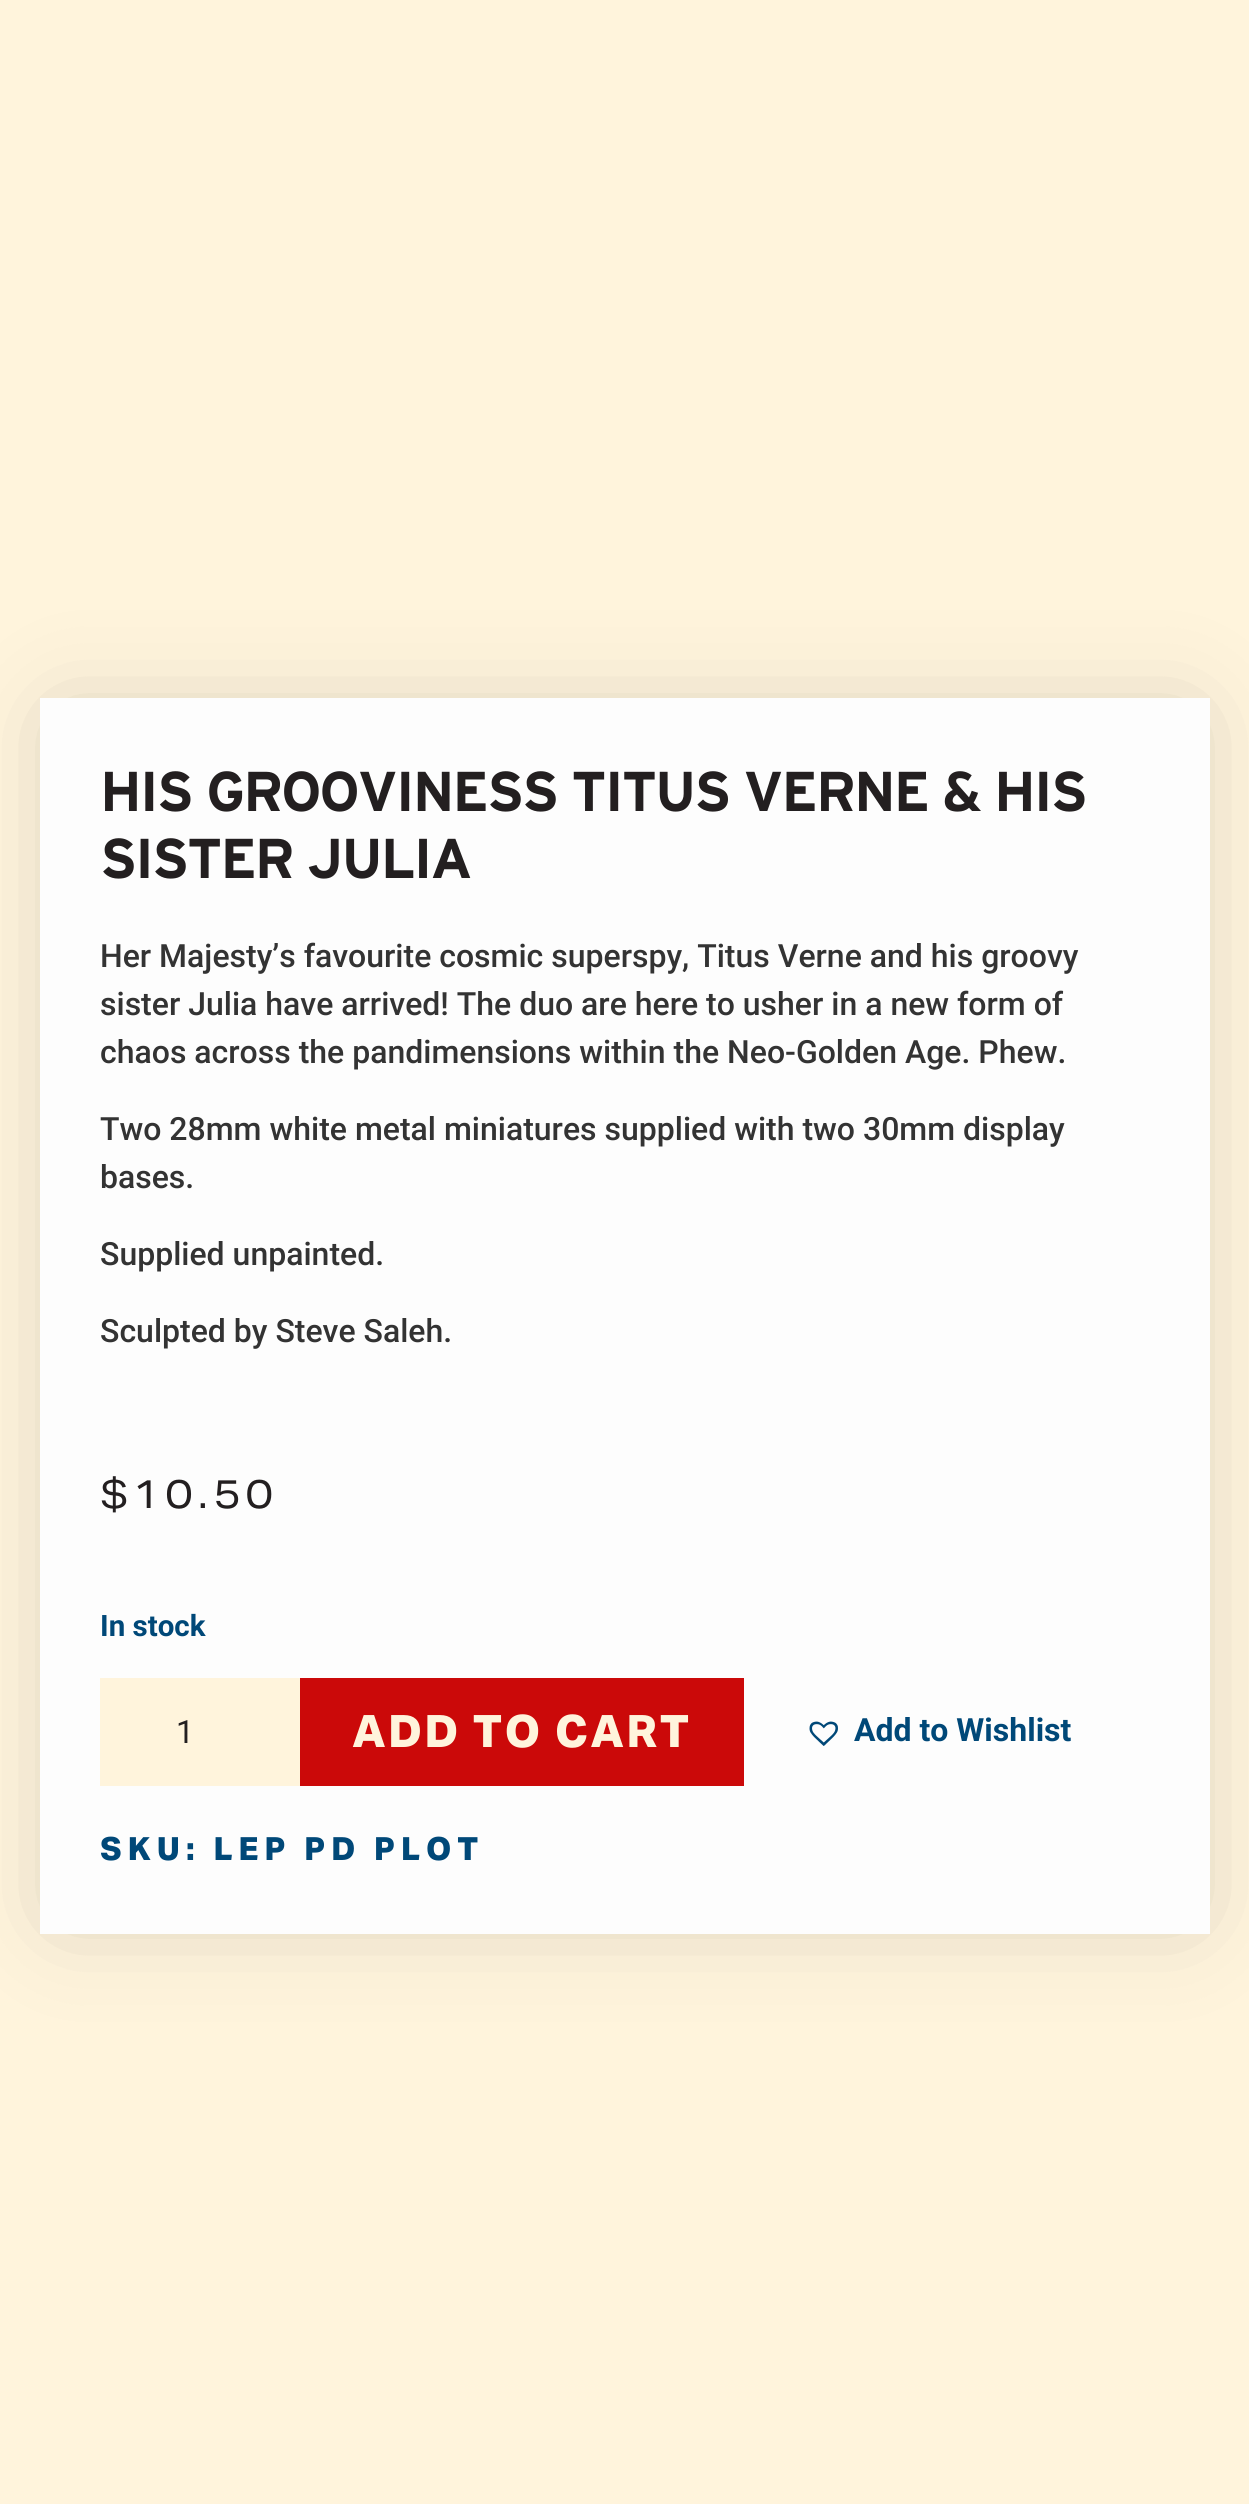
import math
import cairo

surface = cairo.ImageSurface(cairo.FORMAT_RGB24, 1249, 2504)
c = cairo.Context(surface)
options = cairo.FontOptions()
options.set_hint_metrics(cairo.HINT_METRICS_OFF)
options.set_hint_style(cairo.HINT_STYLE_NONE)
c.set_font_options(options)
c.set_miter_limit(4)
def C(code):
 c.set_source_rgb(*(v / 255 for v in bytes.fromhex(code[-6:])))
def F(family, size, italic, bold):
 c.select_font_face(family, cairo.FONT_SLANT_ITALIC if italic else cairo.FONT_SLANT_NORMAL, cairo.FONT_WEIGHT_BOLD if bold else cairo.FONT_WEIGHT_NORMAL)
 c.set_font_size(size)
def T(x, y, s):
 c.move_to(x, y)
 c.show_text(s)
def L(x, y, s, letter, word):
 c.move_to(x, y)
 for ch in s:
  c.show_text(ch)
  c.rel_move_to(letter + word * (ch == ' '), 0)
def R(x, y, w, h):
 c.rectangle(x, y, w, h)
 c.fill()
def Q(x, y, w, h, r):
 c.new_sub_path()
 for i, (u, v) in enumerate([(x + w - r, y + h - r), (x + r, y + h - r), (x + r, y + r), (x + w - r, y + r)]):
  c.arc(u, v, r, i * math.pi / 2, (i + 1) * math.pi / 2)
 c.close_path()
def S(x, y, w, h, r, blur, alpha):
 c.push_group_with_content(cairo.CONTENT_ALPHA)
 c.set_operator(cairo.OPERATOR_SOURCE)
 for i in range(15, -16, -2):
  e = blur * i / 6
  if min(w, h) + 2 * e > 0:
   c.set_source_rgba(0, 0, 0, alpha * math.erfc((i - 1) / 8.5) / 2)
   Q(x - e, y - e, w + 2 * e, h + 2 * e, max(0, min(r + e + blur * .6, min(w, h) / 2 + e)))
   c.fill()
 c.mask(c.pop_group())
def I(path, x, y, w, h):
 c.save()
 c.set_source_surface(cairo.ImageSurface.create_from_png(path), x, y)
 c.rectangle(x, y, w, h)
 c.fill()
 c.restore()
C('fff4dc')
c.paint()
C('000000')
S(60,718,1130,1196,0,50,.17)
C('fdfdfd')
R(40,698,1170,1236)
F('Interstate',56,0,1)
C('231f20')
L(100,811,'HIS GROOVINESS TITUS VERNE & HIS',-2,0)
L(100,878,'SISTER JULIA',-2,0)
F('Roboto Medium',32,0,0)
C('333333')
T(100,967,'Her Majesty’s favourite cosmic superspy, Titus Verne and his groovy')
T(100,1015,'sister Julia have arrived! The duo are here to usher in a new form of')
T(100,1063,'chaos across the pandimensions within the Neo-Golden Age. Phew.')
T(100,1140,'Two 28mm white metal miniatures supplied with two 30mm display')
T(100,1188,'bases.')
T(100,1265,'Supplied unpainted.')
T(100,1342,'Sculpted by Steve Saleh.')
F('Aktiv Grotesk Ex',40,0,0)
C('231f20')
L(100,1508,'$10.50',4.5,0)
F('Roboto',29.5,0,1)
C('004878')
T(100,1636,'In stock')
C('fff4dc')
R(100,1678,200,108)
F('Roboto',32,0,0)
C('231f20')
T(176,1743,'1')
C('cb0909')
R(300,1678,444,108)
F('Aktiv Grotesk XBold',44.75,0,1)
C('fff4dc')
L(352,1747,'ADD TO CART',2.6,0)
I('1.png',809,1721,29,25)
F('Roboto',32,0,1)
C('004878')
T(854,1741,'Add to Wishlist')
F('Aktiv Grotesk XBold',32,0,1)
L(100,1860,'SKU: LEP PD PLOT',6,0)
surface.write_to_png('o.png')
